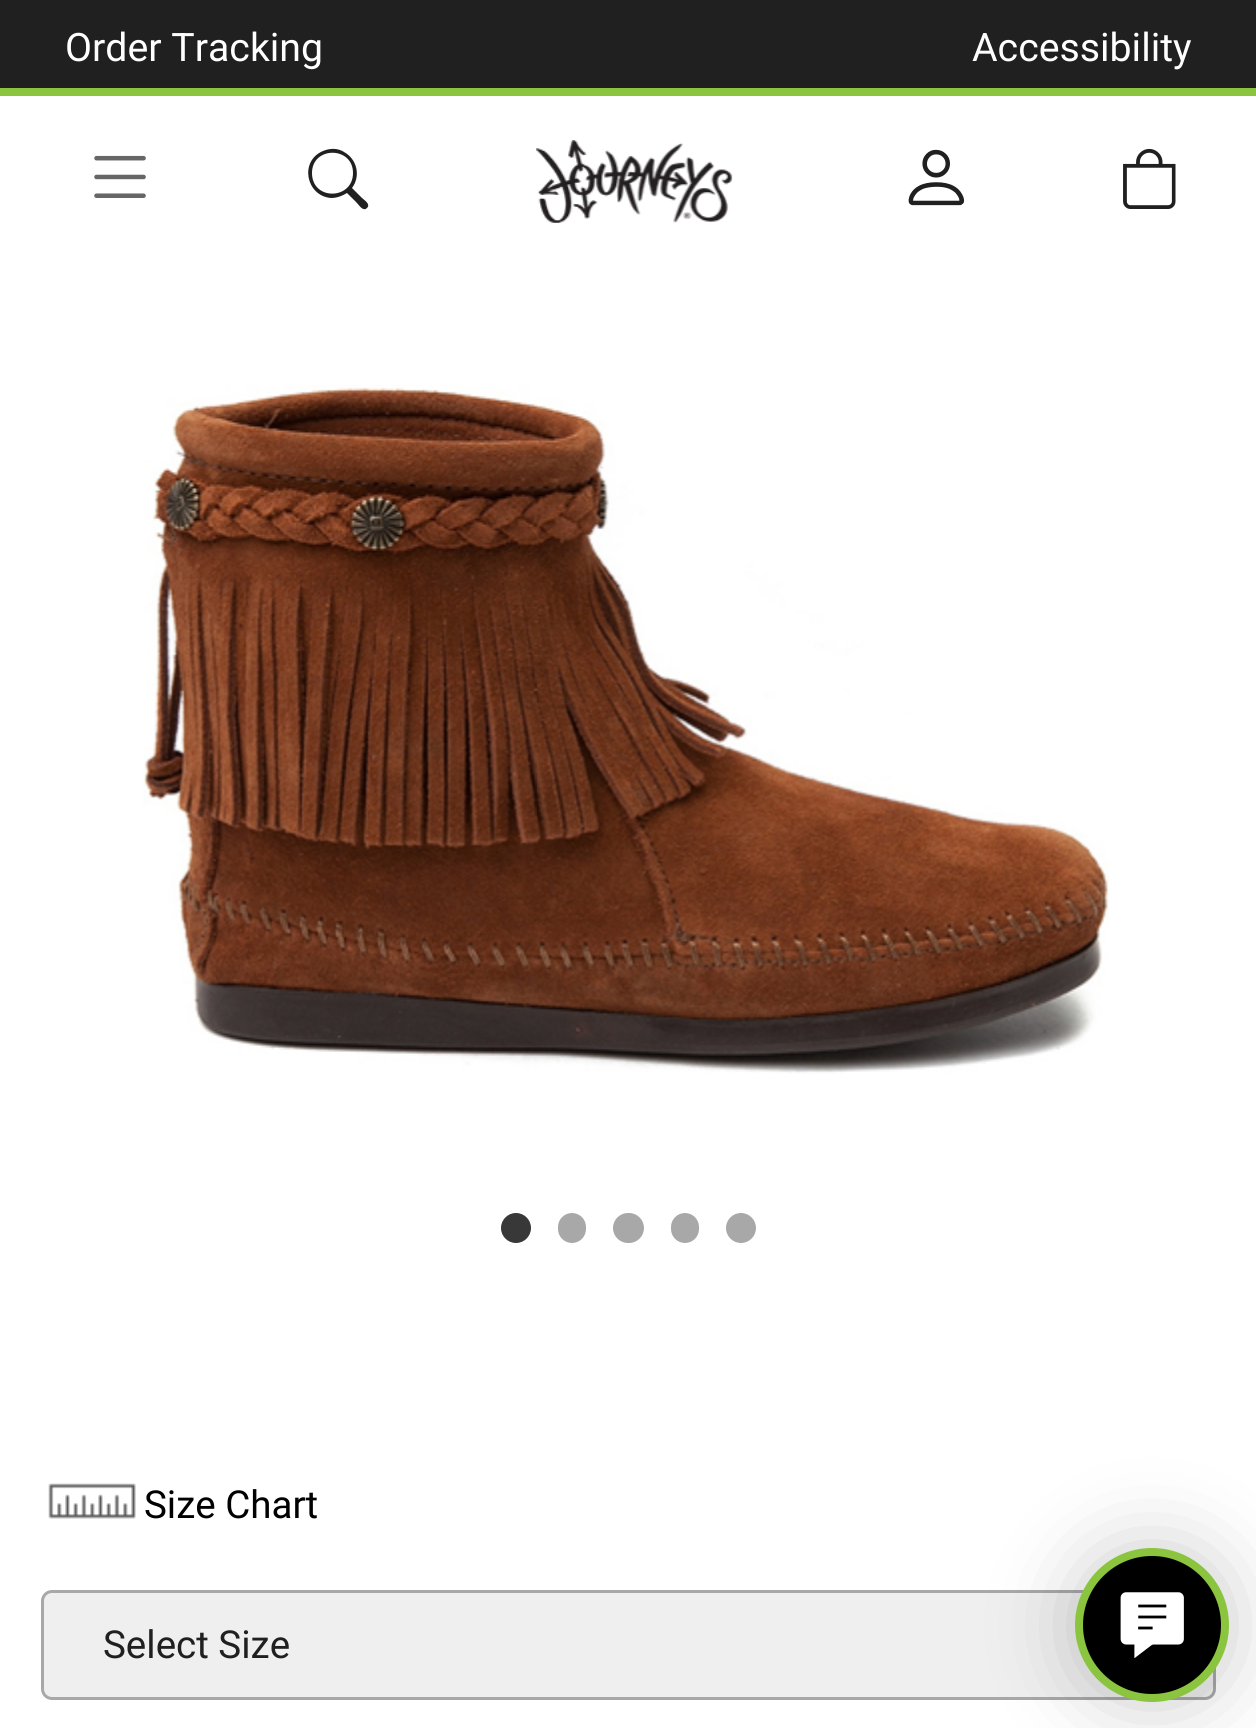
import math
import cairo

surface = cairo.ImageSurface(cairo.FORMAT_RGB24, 1256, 1728)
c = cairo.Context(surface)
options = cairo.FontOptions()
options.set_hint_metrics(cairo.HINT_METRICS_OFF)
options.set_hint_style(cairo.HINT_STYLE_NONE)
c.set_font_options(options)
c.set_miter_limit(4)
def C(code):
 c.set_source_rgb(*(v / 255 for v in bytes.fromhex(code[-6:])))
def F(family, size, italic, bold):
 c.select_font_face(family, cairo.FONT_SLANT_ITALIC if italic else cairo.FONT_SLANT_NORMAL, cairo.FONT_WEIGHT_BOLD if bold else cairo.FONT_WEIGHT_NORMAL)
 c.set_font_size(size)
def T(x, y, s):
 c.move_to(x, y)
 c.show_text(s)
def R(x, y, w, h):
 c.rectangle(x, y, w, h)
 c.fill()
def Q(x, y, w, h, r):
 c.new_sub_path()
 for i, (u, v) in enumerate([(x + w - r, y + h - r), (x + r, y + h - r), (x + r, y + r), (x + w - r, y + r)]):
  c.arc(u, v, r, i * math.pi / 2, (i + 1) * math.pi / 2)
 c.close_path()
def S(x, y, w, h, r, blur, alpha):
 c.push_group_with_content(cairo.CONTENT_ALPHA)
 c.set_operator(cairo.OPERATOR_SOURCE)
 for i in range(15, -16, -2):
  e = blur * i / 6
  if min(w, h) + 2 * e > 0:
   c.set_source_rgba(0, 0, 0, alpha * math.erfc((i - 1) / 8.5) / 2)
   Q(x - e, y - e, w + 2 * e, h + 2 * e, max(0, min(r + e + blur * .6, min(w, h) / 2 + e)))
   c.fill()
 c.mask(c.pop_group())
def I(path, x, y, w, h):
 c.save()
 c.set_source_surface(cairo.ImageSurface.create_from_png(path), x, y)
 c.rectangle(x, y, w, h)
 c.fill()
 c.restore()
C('ffffff')
c.paint()
C('202020')
R(0,0,1256,88)
C('8bc43e')
R(0,88,1256,8)
F('Roboto',39.25,0,0)
C('ffffff')
T(65,61,'Order Tracking')
T(972,61,'Accessibility')
I('1.png',94,155,52,43)
C('202020')
c.new_path()
c.move_to(352,188)
c.curve_to(361,176,357,159,344,152)
c.curve_to(338,148,330,148,323,151)
c.curve_to(299,161,306,196,331,198)
c.curve_to(337,198,342,196,347,193)
c.line_to(357,203)
c.curve_to(359,205,363,212,367,208)
c.curve_to(371,204,364,200,362,198)
c.close_path()
c.move_to(353,173)
c.curve_to(353,200,312,201,312,173)
c.curve_to(312,146,353,146,353,173)
c.close_path()
c.fill()
I('2.png',536,140,197,83)
I('3.png',908,149,57,57)
I('4.png',1123,148,53,61)
I('5.png',143,385,966,689)
C('383838')
c.arc(516,1228,15,0,2 * math.pi)
c.fill()
C('a8a8a8')
Q(558,1213,28,30,14)
c.fill()
Q(613,1213,31,30,15)
c.fill()
Q(671,1213,28,30,14)
c.fill()
c.arc(741,1228,15,0,2 * math.pi)
c.fill()
I('6.png',48,1483,88,36)
F('Roboto',38.5,0,0)
C('000000')
T(144,1518,'Size Chart')
C('efefef')
Q(42.5,1591.5,1172,107,9.5)
c.fill_preserve()
C('a7a8aa')
c.set_line_width(3)
c.stroke()
C('202020')
T(103,1658,'Select Size')
C('000000')
S(1073,1546,159,159,79.5,41,.2)
C('000000')
c.arc(1152,1625,73,0,2 * math.pi)
c.fill_preserve()
C('8bc43e')
c.set_line_width(8)
c.stroke()
I('7.png',1120,1592,64,66)
surface.write_to_png('o.png')
